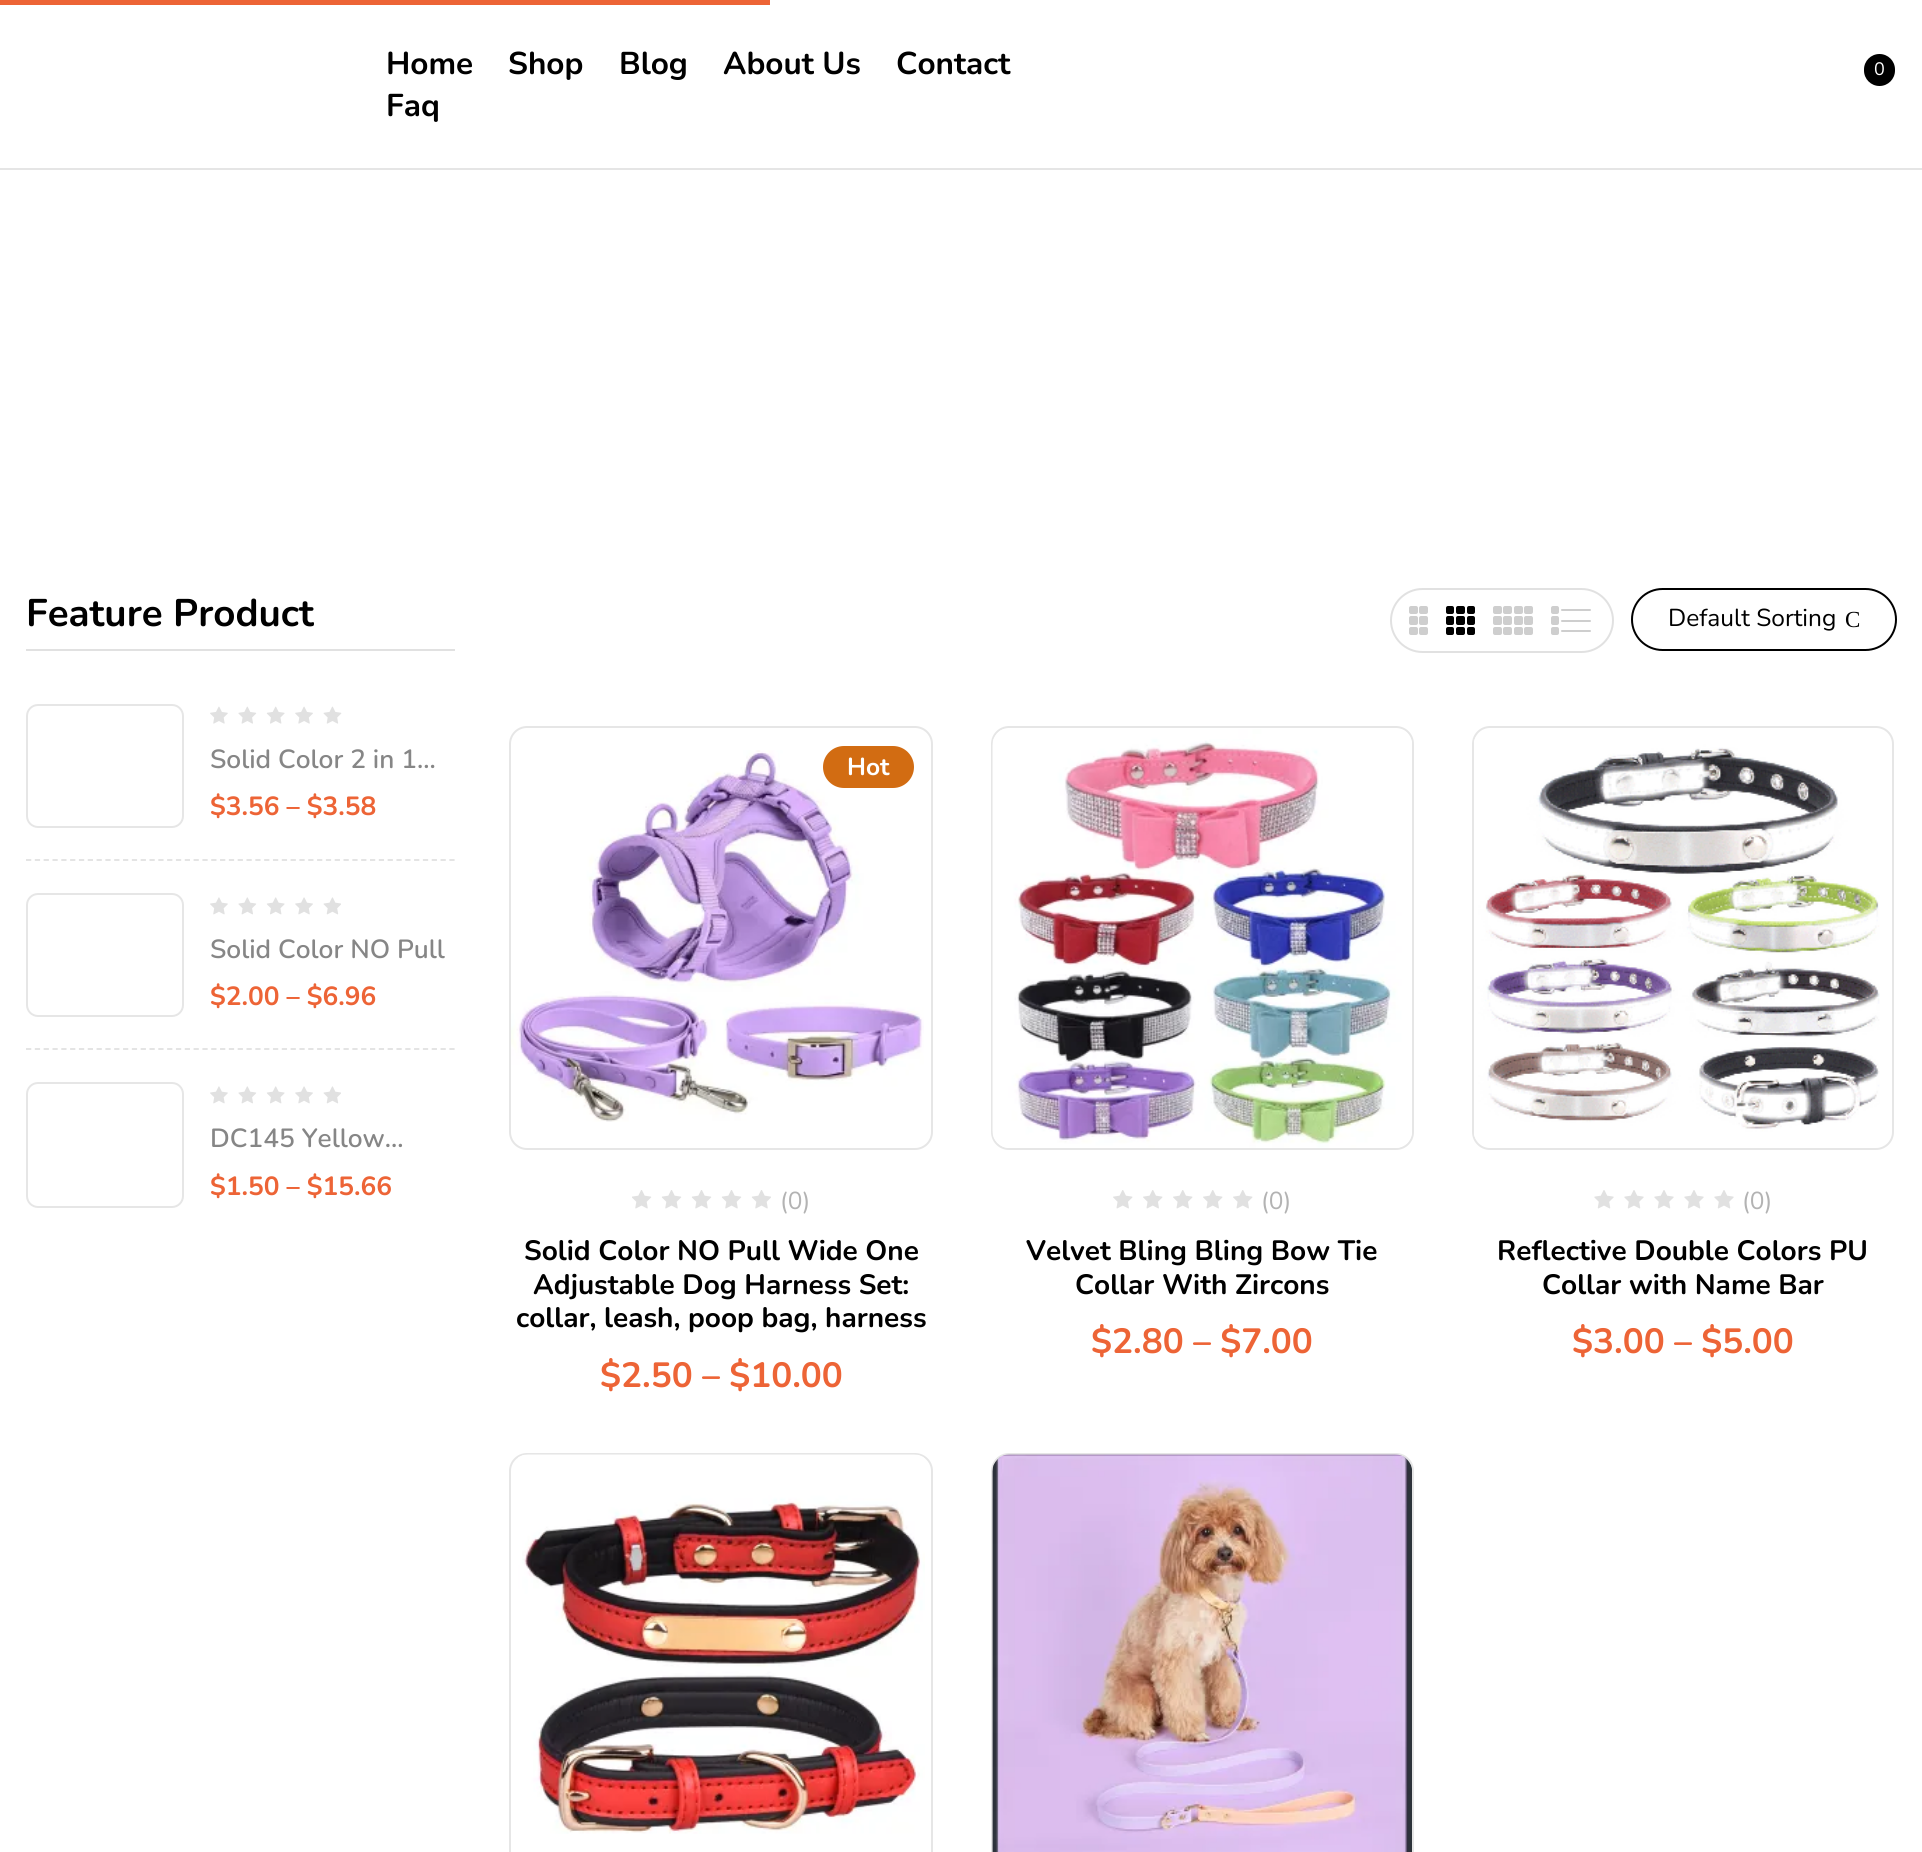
import math
import cairo

surface = cairo.ImageSurface(cairo.FORMAT_RGB24, 1922, 1852)
c = cairo.Context(surface)
options = cairo.FontOptions()
options.set_hint_metrics(cairo.HINT_METRICS_OFF)
options.set_hint_style(cairo.HINT_STYLE_NONE)
c.set_font_options(options)
c.set_miter_limit(4)
def C(code):
 c.set_source_rgb(*(v / 255 for v in bytes.fromhex(code[-6:])))
def F(family, size, italic, bold):
 c.select_font_face(family, cairo.FONT_SLANT_ITALIC if italic else cairo.FONT_SLANT_NORMAL, cairo.FONT_WEIGHT_BOLD if bold else cairo.FONT_WEIGHT_NORMAL)
 c.set_font_size(size)
def T(x, y, s):
 c.move_to(x, y)
 c.show_text(s)
def R(x, y, w, h):
 c.rectangle(x, y, w, h)
 c.fill()
def Q(x, y, w, h, r):
 c.new_sub_path()
 for i, (u, v) in enumerate([(x + w - r, y + h - r), (x + r, y + h - r), (x + r, y + r), (x + w - r, y + r)]):
  c.arc(u, v, r, i * math.pi / 2, (i + 1) * math.pi / 2)
 c.close_path()
def I(path, x, y, w, h):
 c.save()
 c.set_source_surface(cairo.ImageSurface.create_from_png(path), x, y)
 c.rectangle(x, y, w, h)
 c.fill()
 c.restore()
C('ffffff')
c.paint()
C('ed6436')
R(0,0,770,5)
C('e5e5e5')
R(0,168,1922,2)
F('Nunito',31.5,0,1)
C('000000')
T(386,74,'Home')
T(508,74,'Shop')
T(619,74,'Blog')
T(723,74,'About Us')
T(896,74,'Contact')
T(386,116,'Faq')
Q(1864,54,31,32,15.5)
c.fill()
F('Nunito',18,0,0)
C('ffffff')
T(1874,75,'0')
C('e1e1e1')
R(26,649,429,2)
F('Nunito',38.5,0,1)
C('000000')
T(26,626,'Feature Product')
c.new_path()
c.move_to(26,860)
c.line_to(455,860)
C('e1e1e1')
c.set_line_width(1.8)
c.set_dash([5.25,3.57])
c.stroke()
Q(27,705,156,122,11)
C('e6e6e6')
c.set_line_width(2)
c.set_dash([])
c.stroke()
I('1.png',210,706,132,18)
F('Nunito SemiBold',26.25,0,0)
C('868686')
T(210,768,'Solid Color 2 in 1…')
F('Nunito',26.25,0,1)
C('ed6436')
T(210,815,'$3.56 – $3.58')
c.new_path()
c.move_to(26,1049)
c.line_to(455,1049)
C('e1e1e1')
c.set_line_width(1.8)
c.set_dash([5.25,3.57])
c.stroke()
Q(27,894,156,122,11)
C('e6e6e6')
c.set_line_width(2)
c.set_dash([])
c.stroke()
I('2.png',210,897,131,18)
F('Nunito SemiBold',26.25,0,0)
C('868686')
T(210,958,'Solid Color NO Pull')
F('Nunito',26.25,0,1)
C('ed6436')
T(210,1005,'$2.00 – $6.96')
Q(27,1083,156,124,11)
C('e6e6e6')
c.stroke()
I('2.png',210,1086,131,18)
F('Nunito SemiBold',26.25,0,0)
C('868686')
T(210,1147,'DC145 Yellow…')
F('Nunito',26.25,0,1)
C('ed6436')
T(210,1195,'$1.50 – $15.66')
Q(1391,589,222,63,31.5)
C('e1e1e1')
c.stroke()
C('cecece')
Q(1409,606,9,8,2)
c.fill()
Q(1419,606,9,8,2)
c.fill()
Q(1409,616,9,9,2)
c.fill()
Q(1419,616,9,9,2)
c.fill()
Q(1409,627,9,8,2)
c.fill()
Q(1419,627,9,8,2)
c.fill()
C('000000')
Q(1446,606,8,8,2)
c.fill()
Q(1456,606,9,8,2)
c.fill()
Q(1467,606,8,8,2)
c.fill()
Q(1446,616,8,9,2)
c.fill()
Q(1456,616,9,9,2)
c.fill()
Q(1467,616,8,9,2)
c.fill()
Q(1446,627,8,8,2)
c.fill()
Q(1456,627,9,8,2)
c.fill()
Q(1467,627,8,8,2)
c.fill()
C('cecece')
Q(1493,606,9,8,2)
c.fill()
Q(1503,606,9,8,2)
c.fill()
Q(1514,606,9,8,2)
c.fill()
Q(1524,606,9,8,2)
c.fill()
Q(1493,616,9,9,2)
c.fill()
Q(1503,616,9,9,2)
c.fill()
Q(1514,616,9,9,2)
c.fill()
Q(1524,616,9,9,2)
c.fill()
Q(1493,627,9,8,2)
c.fill()
Q(1503,627,9,8,2)
c.fill()
Q(1514,627,9,8,2)
c.fill()
Q(1524,627,9,8,2)
c.fill()
Q(1551,606,8,8,2)
c.fill()
Q(1561,609,30,2,1)
c.fill()
Q(1551,616,8,9,2)
c.fill()
Q(1561,620,30,2,1)
c.fill()
Q(1551,627,8,8,2)
c.fill()
Q(1561,630,30,2,1)
c.fill()
Q(1632,589,264,61,30.5)
C('000000')
c.stroke()
F('Nunito',24.5,0,0)
T(1668,626,'Default Sorting')
F('Liberation Serif',23,0,0)
T(1845,627,'C')
Q(510,727,422,422,17)
C('e6e6e6')
c.stroke()
I('3.png',511,750,413,372)
C('d26c12')
Q(823,746,91,42,21)
c.fill()
F('Nunito',24.5,0,1)
C('ffffff')
T(847,775,'Hot')
I('4.png',632,1190,139,19)
F('Nunito',24.5,0,0)
C('b3b3b3')
T(780,1209,'(0)')
F('Nunito',28,0,1)
C('000000')
T(524,1260,'Solid Color NO Pull Wide One')
T(533,1294,'Adjustable Dog Harness Set:')
T(516,1327,'collar, leash, poop bag, harness')
F('Nunito',35,0,1)
C('ed6436')
T(600,1387,'$2.50 – $10.00')
Q(992,727,421,422,17)
C('e6e6e6')
c.stroke()
I('5.png',992,729,420,419)
I('6.png',1113,1190,140,19)
F('Nunito',24.5,0,0)
C('b3b3b3')
T(1261,1209,'(0)')
F('Nunito',28,0,1)
C('000000')
T(1026,1260,'Velvet Bling Bling Bow Tie')
T(1075,1294,'Collar With Zircons')
F('Nunito',35,0,1)
C('ed6436')
T(1091,1353,'$2.80 – $7.00')
Q(1473,727,420,422,17)
C('e6e6e6')
c.stroke()
I('7.png',1474,737,406,402)
I('8.png',1594,1190,140,19)
F('Nunito',24.5,0,0)
C('b3b3b3')
T(1742,1209,'(0)')
F('Nunito',28,0,1)
C('000000')
T(1497,1260,'Reflective Double Colors PU')
T(1542,1294,'Collar with Name Bar')
F('Nunito',35,0,1)
C('ed6436')
T(1572,1353,'$3.00 – $5.00')
Q(510,1454,422,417,17)
C('e6e6e6')
c.stroke()
I('9.png',518,1454,407,380)
Q(992,1454,421,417,17)
c.stroke()
I('10.png',992,1454,420,398)
surface.write_to_png('o.png')
